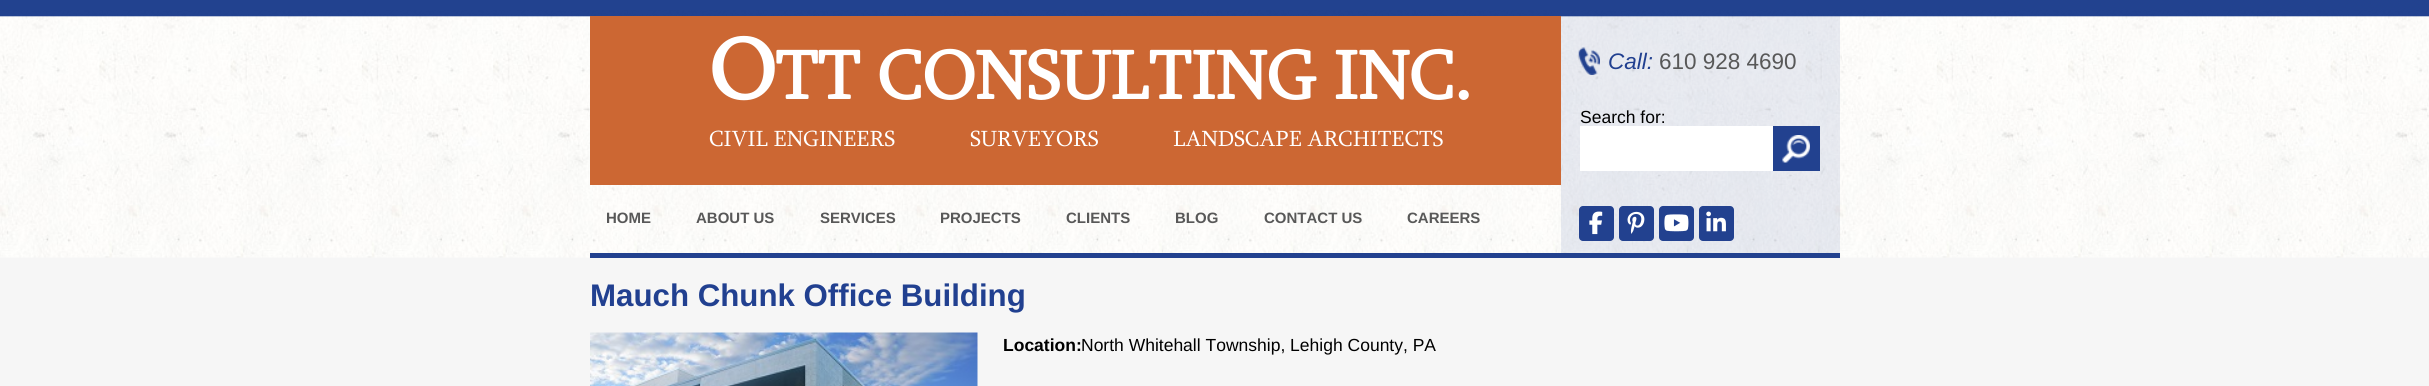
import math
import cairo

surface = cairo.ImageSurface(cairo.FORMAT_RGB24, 2429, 386)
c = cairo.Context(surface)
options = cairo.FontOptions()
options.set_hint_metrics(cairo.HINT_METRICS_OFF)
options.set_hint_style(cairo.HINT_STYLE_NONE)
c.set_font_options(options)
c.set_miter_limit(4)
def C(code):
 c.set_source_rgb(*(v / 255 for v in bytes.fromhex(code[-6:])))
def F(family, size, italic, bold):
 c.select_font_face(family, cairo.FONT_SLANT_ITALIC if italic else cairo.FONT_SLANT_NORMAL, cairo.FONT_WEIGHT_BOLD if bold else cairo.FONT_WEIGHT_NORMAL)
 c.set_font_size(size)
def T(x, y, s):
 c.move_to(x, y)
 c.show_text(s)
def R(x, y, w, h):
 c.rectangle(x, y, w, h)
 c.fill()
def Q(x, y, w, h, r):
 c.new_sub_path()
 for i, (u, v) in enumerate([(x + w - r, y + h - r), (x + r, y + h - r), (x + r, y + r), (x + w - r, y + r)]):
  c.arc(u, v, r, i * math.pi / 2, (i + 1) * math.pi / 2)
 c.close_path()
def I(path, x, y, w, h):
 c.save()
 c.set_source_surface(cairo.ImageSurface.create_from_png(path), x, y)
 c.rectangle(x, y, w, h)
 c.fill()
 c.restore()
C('f6f6f6')
c.paint()
I('1.png',0,0,2429,258)
C('22418f')
R(590,253,1250,5)
C('cc6733')
R(590,16,971,169)
F('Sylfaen',88,0,1)
C('ffffff')
T(709,99,'O')
F('Sylfaen',70,0,1)
T(775,99,'TT CONSULTING INC.')
F('Sylfaen',22.5,0,0)
T(709,146,'CIVIL ENGINEERS')
T(970,146,'SURVEYORS')
T(1173,146,'LANDSCAPE ARCHITECTS')
c.set_source_rgba(0.133,0.255,0.561,0.1)
R(1561,16,279,237)
I('2.png',1578,47,22,28)
F('Liberation Sans',22.5,1,0)
C('214090')
T(1608,69,'Call:')
F('Liberation Sans',22.5,0,0)
C('585858')
T(1659,69,'610 928 4690')
F('Liberation Sans',17.5,0,0)
C('000000')
T(1580,123,'Search for:')
C('ffffff')
R(1580,126,193,45)
C('22418f')
R(1773,126,47,45)
I('3.png',1782,135,28,28)
Q(1579,206,35,35,4)
c.fill()
I('4.png',1589,211,14,24)
Q(1619,206,35,35,4)
c.fill()
I('5.png',1627,211,18,23)
Q(1659,206,35,35,4)
c.fill()
I('6.png',1664,214,25,18)
Q(1699,206,35,35,4)
c.fill()
I('7.png',1706,211,20,21)
F('Liberation Sans',15,0,1)
C('585858')
T(606,223,'HOME')
T(696,223,'ABOUT US')
T(820,223,'SERVICES')
T(940,223,'PROJECTS')
T(1066,223,'CLIENTS')
T(1175,223,'BLOG')
T(1264,223,'CONTACT US')
T(1407,223,'CAREERS')
F('Liberation Sans',31.25,0,1)
C('214090')
T(590,306,'Mauch Chunk Office Building')
I('8.png',590,332,388,54)
F('Liberation Sans',17.5,0,1)
C('000000')
T(1003,351,'Location:')
F('Liberation Sans',17.5,0,0)
T(1081,351,'North Whitehall Township, Lehigh County, PA')
surface.write_to_png('o.png')
